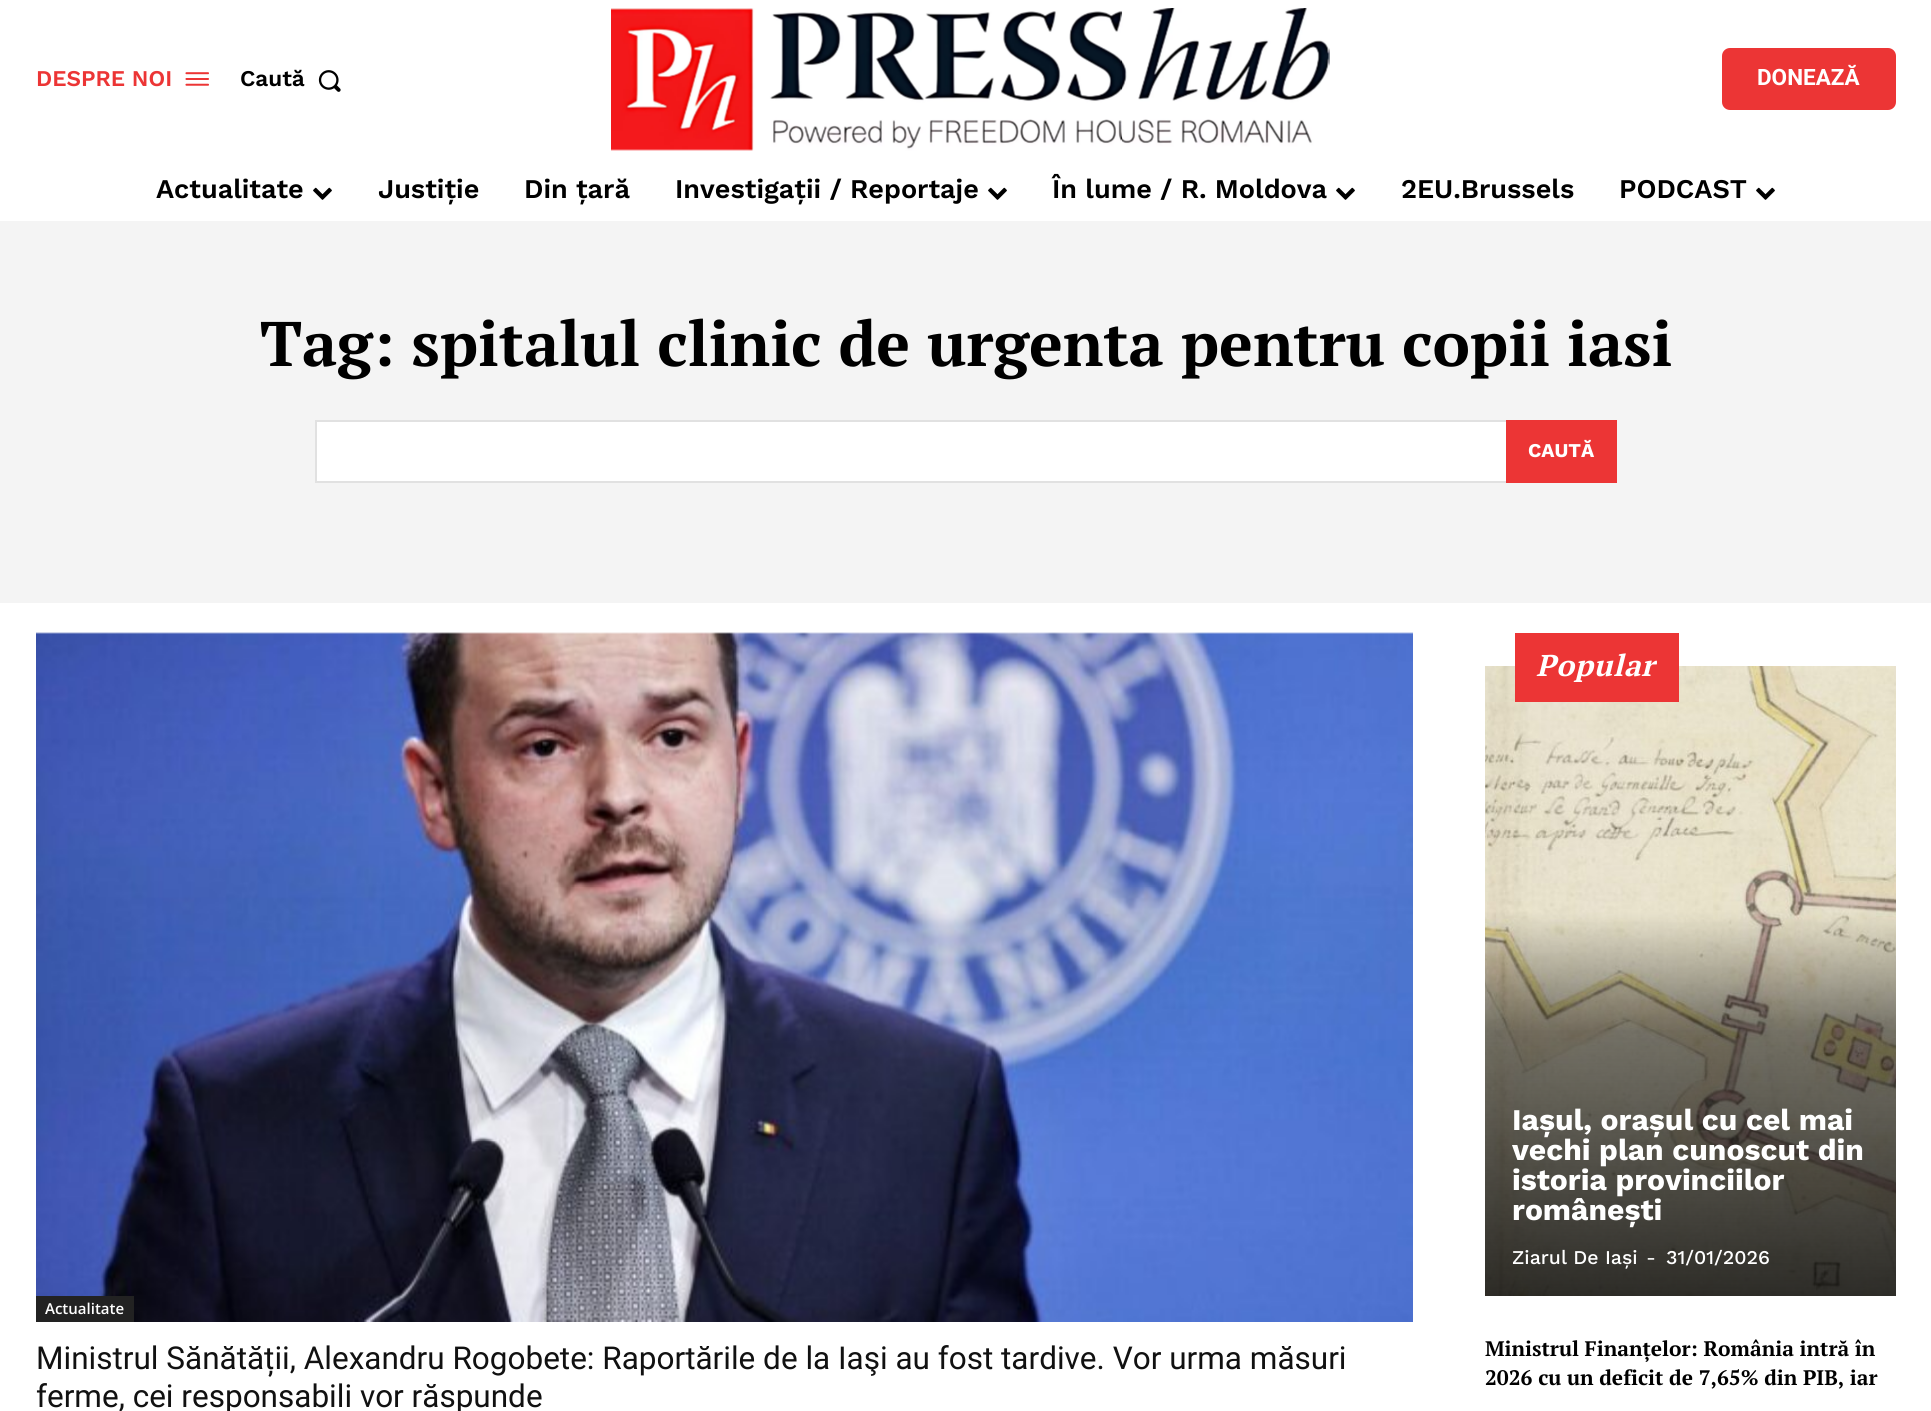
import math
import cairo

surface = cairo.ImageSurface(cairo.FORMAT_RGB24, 1931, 1411)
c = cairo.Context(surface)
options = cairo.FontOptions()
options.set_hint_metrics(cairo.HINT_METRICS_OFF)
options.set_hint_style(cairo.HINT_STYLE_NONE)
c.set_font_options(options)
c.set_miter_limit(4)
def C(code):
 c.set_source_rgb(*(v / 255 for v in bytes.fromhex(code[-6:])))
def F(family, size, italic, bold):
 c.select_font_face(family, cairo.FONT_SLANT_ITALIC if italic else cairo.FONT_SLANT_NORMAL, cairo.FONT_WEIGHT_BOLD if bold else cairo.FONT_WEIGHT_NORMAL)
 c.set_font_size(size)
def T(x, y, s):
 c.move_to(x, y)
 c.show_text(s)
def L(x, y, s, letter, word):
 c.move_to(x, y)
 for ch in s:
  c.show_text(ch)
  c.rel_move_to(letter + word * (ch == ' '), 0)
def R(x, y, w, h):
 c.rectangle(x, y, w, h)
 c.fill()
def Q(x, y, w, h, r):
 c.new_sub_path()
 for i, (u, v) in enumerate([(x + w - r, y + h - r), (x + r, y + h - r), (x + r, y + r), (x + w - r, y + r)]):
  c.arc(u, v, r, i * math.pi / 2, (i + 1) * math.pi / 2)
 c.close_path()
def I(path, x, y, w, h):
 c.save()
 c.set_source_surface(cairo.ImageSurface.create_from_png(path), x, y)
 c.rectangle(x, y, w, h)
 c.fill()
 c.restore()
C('ffffff')
c.paint()
F('Work Sans SemiBold',22.5,0,0)
C('ec3535')
T(36,86,'DESPRE NOI')
I('1.png',185,72,24,14)
C('000000')
T(240,86,'Caută')
I('2.png',318,70,23,22)
I('3.png',611,8,719,143)
C('ec3535')
Q(1722,48,174,62,8)
c.fill()
F('Roboto',22.5,0,1)
C('ffffff')
T(1757,85,'DONEAZĂ')
F('Work Sans SemiBold',27,0,0)
C('000000')
T(156,198,'Actualitate')
I('4.png',313,187,19,13)
T(378,198,'Justiție')
T(524,198,'Din țară')
T(675,198,'Investigații / Reportaje')
I('4.png',988,187,19,13)
T(1052,198,'În lume / R. Moldova')
I('4.png',1336,187,19,13)
T(1401,198,'2EU.Brussels')
T(1619,198,'PODCAST')
I('4.png',1756,187,19,13)
C('f4f4f4')
R(0,221,1931,382)
F('PT Serif',63,0,1)
C('000000')
T(260,366,'Tag: spitalul clinic de urgenta pentru copii iasi')
C('ffffff')
R(317,422,1189,59)
c.rectangle(316,421,1300,61)
C('e1e1e1')
c.stroke()
C('ec3535')
R(1506,420,111,63)
F('Work Sans',19.5,0,1)
C('ffffff')
T(1528,457,'CAUTĂ')
I('5.png',36,632,1377,690)
C('222222')
R(36,1296,98,26)
F('Open Sans SemiBold',15,0,0)
C('ffffff')
T(45,1314,'Actualitate')
F('Roboto',31.5,0,0)
C('111111')
T(36,1369,'Ministrul Sănătății, Alexandru Rogobete: Raportările de la Iaşi au fost tardive. Vor urma măsuri')
T(36,1407,'ferme, cei responsabili vor răspunde')
I('6.png',1485,666,411,630)
C('ec3535')
R(1515,633,164,69)
F('PT Serif',30,1,1)
C('ffffff')
L(1536,676,'Popular',.75,0)
F('Work Sans',30,0,1)
T(1512,1130,'Iașul, orașul cu cel mai')
T(1512,1160,'vechi plan cunoscut din')
T(1512,1190,'istoria provinciilor')
T(1512,1220,'românești')
F('Work Sans Medium',19.5,0,0)
T(1512,1264,'Ziarul De Iași')
F('Work Sans',19.5,0,0)
T(1646,1264,'-')
F('Work Sans Medium',19.5,0,0)
T(1666,1264,'31/01/2026')
F('PT Serif',21,0,1)
C('000000')
T(1485,1356,'Ministrul Finanțelor: România intră în')
T(1485,1385,'2026 cu un deficit de 7,65% din PIB, iar')
surface.write_to_png('o.png')
